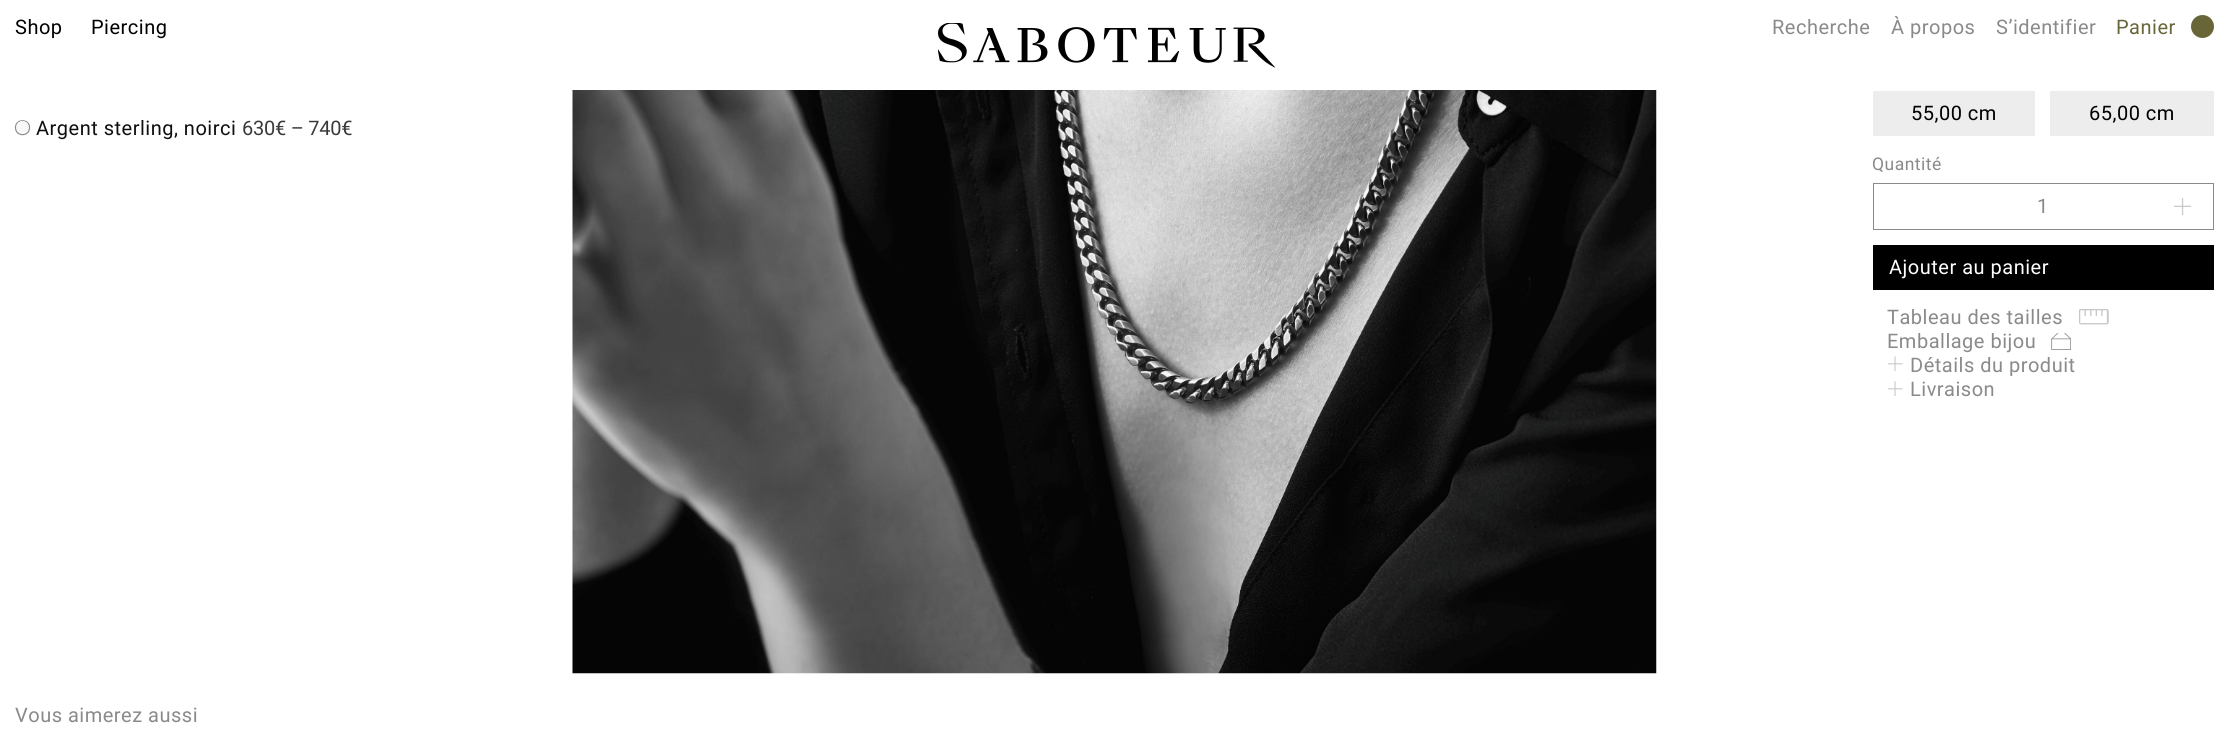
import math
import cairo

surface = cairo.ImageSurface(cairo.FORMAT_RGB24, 2228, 746)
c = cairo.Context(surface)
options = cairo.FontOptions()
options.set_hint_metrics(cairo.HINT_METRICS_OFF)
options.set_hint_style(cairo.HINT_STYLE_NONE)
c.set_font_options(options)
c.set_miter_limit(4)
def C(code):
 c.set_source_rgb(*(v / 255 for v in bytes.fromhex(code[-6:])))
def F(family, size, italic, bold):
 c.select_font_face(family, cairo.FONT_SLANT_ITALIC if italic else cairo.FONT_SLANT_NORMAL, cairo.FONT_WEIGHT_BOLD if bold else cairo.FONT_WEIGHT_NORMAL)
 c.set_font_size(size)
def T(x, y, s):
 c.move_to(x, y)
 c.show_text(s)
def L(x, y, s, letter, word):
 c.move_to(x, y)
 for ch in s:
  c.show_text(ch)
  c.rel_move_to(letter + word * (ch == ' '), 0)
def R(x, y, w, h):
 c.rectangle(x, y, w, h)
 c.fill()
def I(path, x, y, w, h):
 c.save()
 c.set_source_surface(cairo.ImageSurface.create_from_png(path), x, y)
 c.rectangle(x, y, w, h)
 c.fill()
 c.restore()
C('ffffff')
c.paint()
F('Roboto',20,0,0)
C('000000')
L(15,34,'Shop',.5,0)
L(91,34,'Piercing',.5,0)
I('1.png',938,23,337,45)
C('8a8a8a')
L(1772,34,'Recherche',.5,0)
L(1891,34,'À propos',.5,0)
L(1996,34,'S’identifier',.5,0)
C('686538')
L(2116,34,'Panier',.5,0)
c.new_path()
c.arc(2202.5,26.5,11.5,0,2 * math.pi)
c.fill()
c.new_path()
c.move_to(15.5,127.5)
c.curve_to(15.5,118.5,29.5,118.5,29.5,127.5)
c.curve_to(29.5,137,15.5,137,15.5,127.5)
c.close_path()
C('8a8a8a')
c.set_line_width(1.2)
c.stroke()
I('2.png',16,121,13,12)
C('0f0f0f')
L(36,135,'Argent sterling, noirci',.5,0)
C('3a3a3a')
L(242,135,'630€ – 740€',-.25,0)
I('3.png',572,90,1085,584)
C('ededed')
R(1873,91,162,45)
C('000000')
L(1911,120,'55,00 cm',.5,0)
C('ededed')
R(2050,91,164,45)
C('000000')
L(2089,120,'65,00 cm',.5,0)
F('Roboto',17.5,0,0)
C('8a8a8a')
L(1872,170,'Quantité',.5,0)
c.rectangle(1873.5,183.5,340,46)
c.set_line_width(1)
c.stroke()
F('Roboto',20,0,0)
T(2037,213,'1')
I('4.png',2174,198,17,17)
C('000000')
R(1873,245,341,45)
C('ffffff')
L(1889,274,'Ajouter au panier',.5,0)
C('8a8a8a')
L(1887,324,'Tableau des tailles',.5,0)
I('5.png',2079,309,30,16)
L(1887,348,'Emballage bijou',.5,0)
I('6.png',2051,333,20,17)
I('7.png',1888,356,15,15)
L(1910,372,'Détails du produit',.5,0)
I('7.png',1888,381,15,15)
L(1910,396,'Livraison',.5,0)
L(15,722,'Vous aimerez aussi',.5,0)
surface.write_to_png('o.png')
